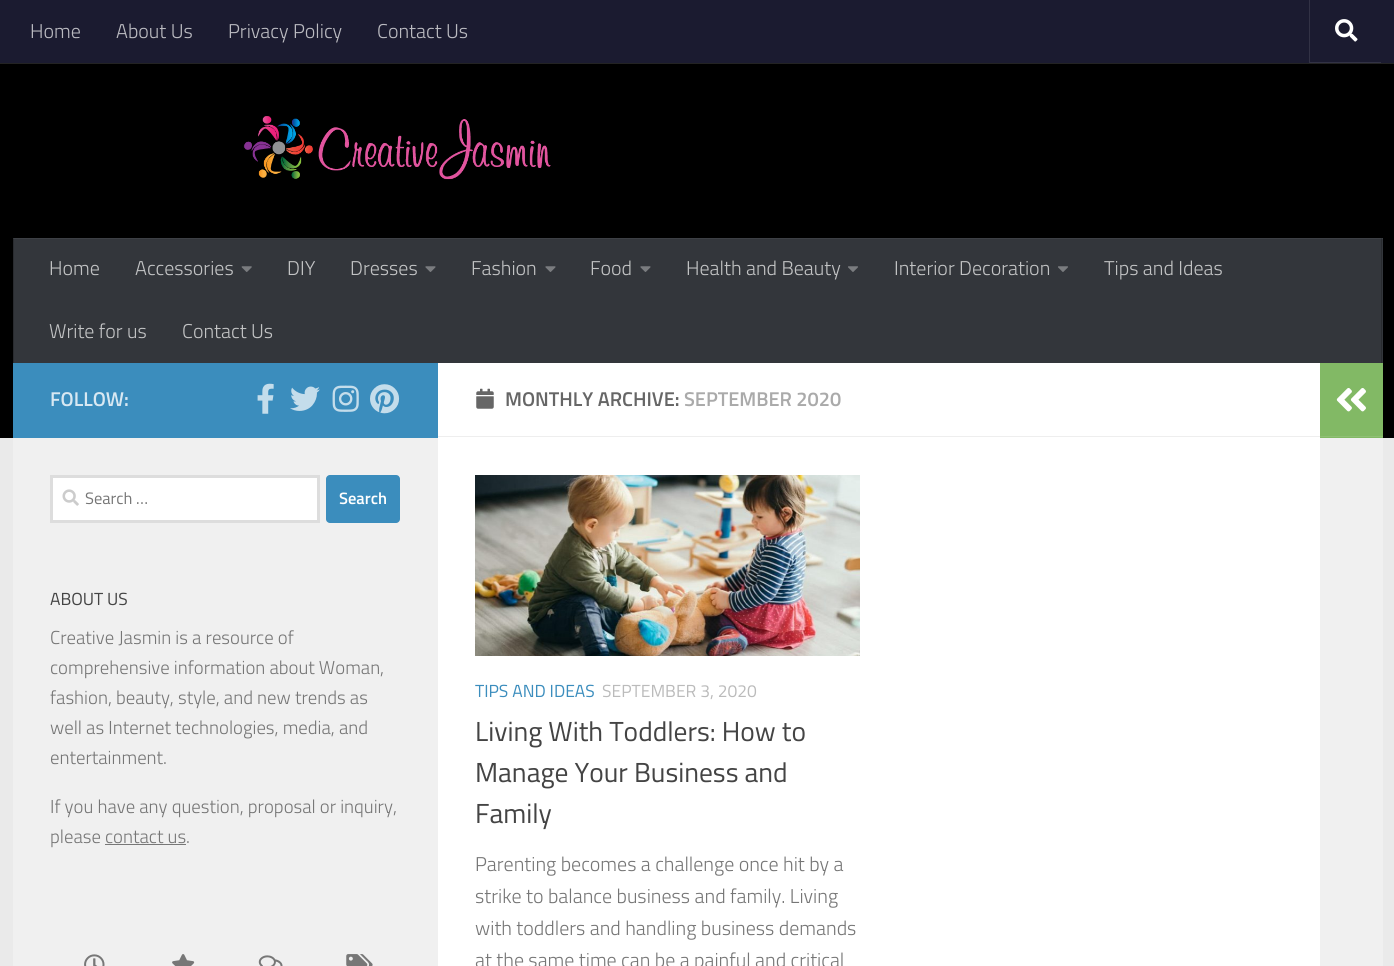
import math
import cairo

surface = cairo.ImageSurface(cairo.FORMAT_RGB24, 1394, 966)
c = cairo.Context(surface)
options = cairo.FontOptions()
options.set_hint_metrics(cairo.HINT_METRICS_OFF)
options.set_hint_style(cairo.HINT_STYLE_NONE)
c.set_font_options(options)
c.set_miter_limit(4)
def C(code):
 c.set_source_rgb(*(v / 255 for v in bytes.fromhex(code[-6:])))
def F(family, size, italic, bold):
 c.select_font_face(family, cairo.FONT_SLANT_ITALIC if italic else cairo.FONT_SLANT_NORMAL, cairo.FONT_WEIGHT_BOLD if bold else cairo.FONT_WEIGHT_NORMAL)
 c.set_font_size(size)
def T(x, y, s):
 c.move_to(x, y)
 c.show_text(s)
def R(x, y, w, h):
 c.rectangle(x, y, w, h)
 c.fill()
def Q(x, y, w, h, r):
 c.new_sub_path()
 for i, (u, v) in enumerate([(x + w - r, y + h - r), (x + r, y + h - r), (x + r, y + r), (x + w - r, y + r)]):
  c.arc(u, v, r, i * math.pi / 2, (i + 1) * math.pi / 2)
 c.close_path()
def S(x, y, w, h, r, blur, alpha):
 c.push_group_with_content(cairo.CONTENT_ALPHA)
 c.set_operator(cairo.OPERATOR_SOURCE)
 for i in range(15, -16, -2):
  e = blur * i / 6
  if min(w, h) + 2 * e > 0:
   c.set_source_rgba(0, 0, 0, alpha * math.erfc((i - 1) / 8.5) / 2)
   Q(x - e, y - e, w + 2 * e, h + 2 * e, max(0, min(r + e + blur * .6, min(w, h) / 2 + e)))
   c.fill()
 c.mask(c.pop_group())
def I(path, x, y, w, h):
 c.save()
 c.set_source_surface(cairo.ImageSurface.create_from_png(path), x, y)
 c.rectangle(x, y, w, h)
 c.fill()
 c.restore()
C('eaeaea')
c.paint()
C('000000')
R(0,64,1394,374)
C('262626')
R(0,63,1394,1)
C('000000')
S(0,0,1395,63,0,3,.2)
C('1b1b30')
R(0,0,1394,63)
F('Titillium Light',20,0,0)
C('bbbbc1')
T(30,38,'Home')
T(116,38,'About Us')
T(228,38,'Privacy Policy')
T(377,38,'Contact Us')
C('323245')
c.new_path()
c.move_to(1309,0)
c.line_to(1309,63)
c.line_to(1381,63)
c.line_to(1381,62)
c.line_to(1310,62)
c.line_to(1310,0)
c.close_path()
c.fill()
I('1.png',1335,19,23,23)
I('2.png',243,116,308,64)
C('33363b')
R(14,239,1369,124)
C('3d4045')
R(13,238,1370,1)
C('292b2f')
R(1381,238,1,125)
C('343639')
R(1381,238,1,1)
C('292b2f')
R(13,238,1,125)
C('343639')
R(13,238,1,1)
C('c2c3c4')
T(49,275,'Home')
T(135,275,'Accessories')
I('3.png',241,266,11,6)
T(287,275,'DIY')
T(350,275,'Dresses')
I('4.png',425,266,11,6)
T(471,275,'Fashion')
I('4.png',545,266,11,6)
T(590,275,'Food')
I('4.png',640,266,11,6)
T(686,275,'Health and Beauty')
I('5.png',848,266,10,6)
T(894,275,'Interior Decoration')
I('5.png',1058,266,10,6)
T(1104,275,'Tips and Ideas')
T(49,338,'Write for us')
T(182,338,'Contact Us')
C('ffffff')
R(438,363,882,603)
C('3b8dbd')
R(13,363,425,75)
F('Titillium SemiBold',20,0,0)
C('d8e8f2')
T(50,406,'FOLLOW:')
I('6.png',257,383,17,31)
I('7.png',290,386,30,25)
I('8.png',332,385,27,27)
I('9.png',370,384,30,30)
C('f0f0f0')
R(13,438,425,528)
C('ffffff')
c.rectangle(51.5,476.5,267,45)
c.fill_preserve()
C('dddddd')
c.set_line_width(3)
c.stroke()
I('10.png',62,489,17,17)
F('Titillium',16.5,0,0)
C('767676')
T(85,504,'Search …')
C('3b8dbd')
Q(326,475,74,48,4)
c.fill()
F('Titillium SemiBold',16.5,0,0)
C('ffffff')
T(339,504,'Search')
F('Titillium',17.5,0,0)
C('444444')
T(50,605,'ABOUT US')
F('Titillium Light',18.75,0,0)
C('767676')
T(50,644,'Creative Jasmin is a resource of')
T(50,674,'comprehensive information about Woman,')
T(50,704,'fashion, beauty, style, and new trends as')
T(50,734,'well as Internet technologies, media, and')
T(50,764,'entertainment.')
T(50,813,'If you have any question, proposal or inquiry,')
T(50,843,'please contact us.')
C('777777')
R(105,844,81,1)
I('11.png',84,954,21,12)
I('12.png',172,954,23,12)
I('13.png',258,955,25,11)
I('14.png',346,954,27,12)
C('eeeeee')
R(438,436,882,1)
I('15.png',476,388,18,21)
F('Titillium SemiBold',20,0,0)
C('666666')
T(505,406,'MONTHLY ARCHIVE:')
C('aaaaaa')
T(684,406,'SEPTEMBER 2020')
I('16.png',475,475,385,181)
F('Titillium',17.5,0,0)
C('3b8dbd')
T(475,697,'TIPS AND IDEAS')
C('bbbbbb')
T(602,697,'SEPTEMBER 3, 2020')
F('Titillium',27.5,0,0)
C('444444')
T(475,741,'Living With Toddlers: How to')
T(475,782,'Manage Your Business and')
T(475,823,'Family')
F('Titillium Light',20,0,0)
C('767676')
T(475,871,'Parenting becomes a challenge once hit by a')
T(475,903,'strike to balance business and family. Living')
T(475,935,'with toddlers and handling business demands')
T(475,967,'at the same time can be a painful and critical')
C('82b965')
R(1320,363,63,75)
C('8fc074')
R(1320,436,63,1)
I('17.png',1336,388,30,24)
C('f0f0f0')
R(1320,438,63,528)
surface.write_to_png('o.png')
